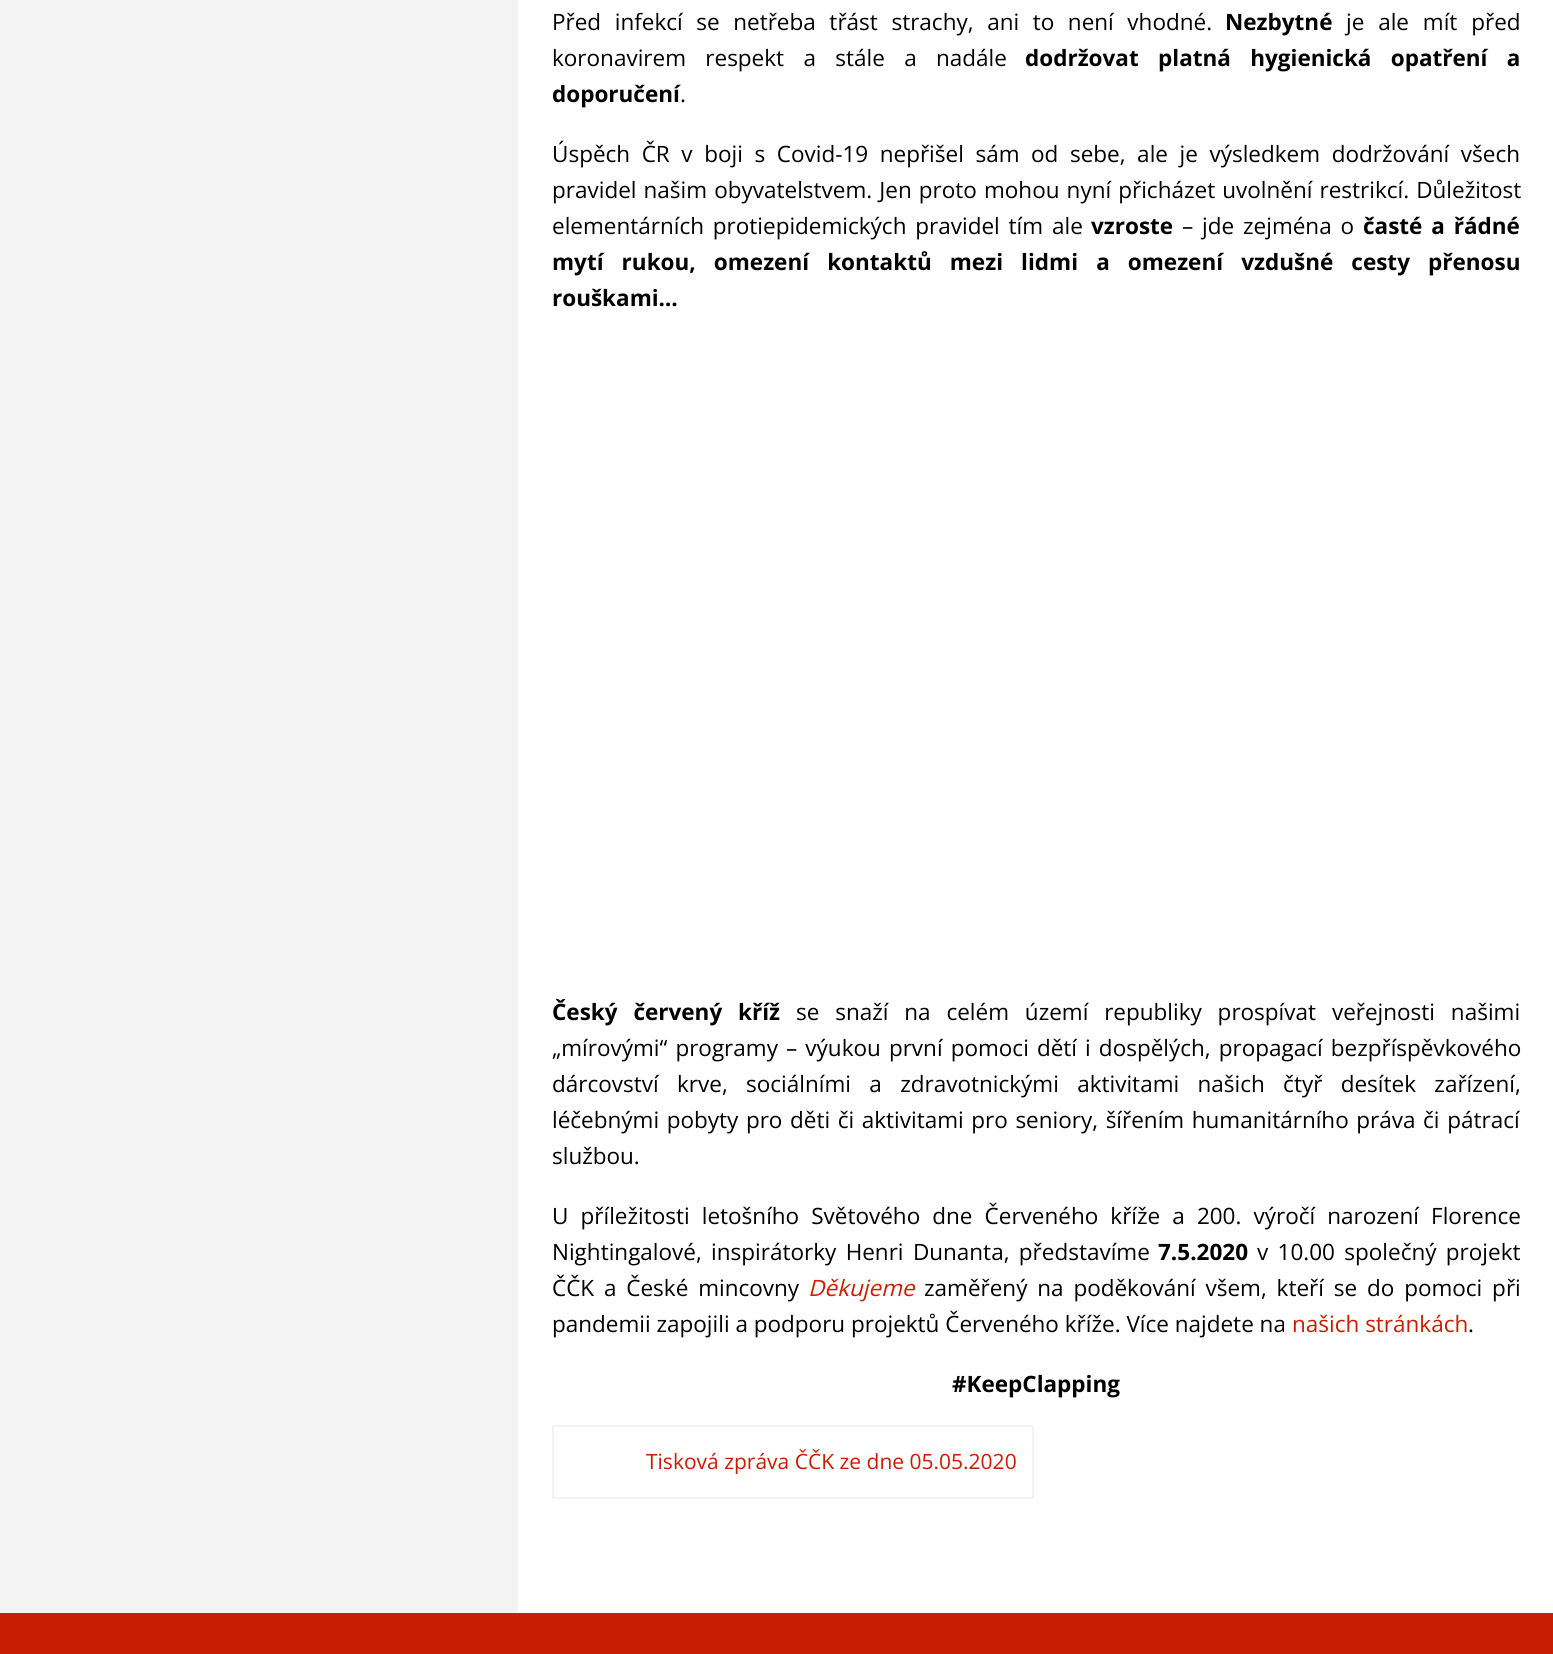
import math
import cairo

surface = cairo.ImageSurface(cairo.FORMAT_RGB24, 1553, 1654)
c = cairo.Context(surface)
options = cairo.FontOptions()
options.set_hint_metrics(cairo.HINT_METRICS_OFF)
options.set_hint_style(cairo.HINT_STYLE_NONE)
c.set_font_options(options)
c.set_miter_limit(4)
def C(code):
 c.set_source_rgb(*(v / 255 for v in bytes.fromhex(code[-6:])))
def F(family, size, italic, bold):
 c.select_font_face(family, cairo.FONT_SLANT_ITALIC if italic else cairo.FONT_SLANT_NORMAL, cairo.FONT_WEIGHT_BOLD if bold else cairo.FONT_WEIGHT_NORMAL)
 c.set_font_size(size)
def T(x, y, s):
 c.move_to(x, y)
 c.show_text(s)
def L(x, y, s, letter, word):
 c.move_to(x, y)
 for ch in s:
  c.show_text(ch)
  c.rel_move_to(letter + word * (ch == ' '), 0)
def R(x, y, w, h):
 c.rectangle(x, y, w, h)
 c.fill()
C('ffffff')
c.paint()
C('f3f3f3')
R(0,0,518,1613)
F('Open Sans',22.5,0,0)
C('000000')
L(552,30,'Před infekcí se netřeba třást strachy, ani to není vhodné.',0,7.75)
F('Open Sans',22.5,0,1)
T(1225,30,'Nezbytné')
F('Open Sans',22.5,0,0)
L(1346,30,'je ale mít před',0,8)
L(552,66,'koronavirem respekt a stále a nadále',0,13.5)
F('Open Sans',22.5,0,1)
L(1025,66,'dodržovat platná hygienická opatření a',0,13.5)
T(552,102,'doporučení')
F('Open Sans',22.5,0,0)
T(680,102,'.')
L(552,162,'Úspěch ČR v boji s Covid-19 nepřišel sám od sebe, ale je výsledkem dodržování všech',0,5.75)
L(552,198,'pravidel našim obyvatelstvem. Jen proto mohou nyní přicházet uvolnění restrikcí. Důležitost',0,1.25)
L(552,234,'elementárních protiepidemických pravidel tím ale',0,3)
F('Open Sans',22.5,0,1)
T(1091,234,'vzroste')
F('Open Sans',22.5,0,0)
L(1182,234,'– jde zejména o',0,3)
F('Open Sans',22.5,0,1)
L(1363,234,'časté a řádné',0,3)
L(552,270,'mytí rukou, omezení kontaktů mezi lidmi a omezení vzdušné cesty přenosu',0,12.25)
T(552,306,'rouškami…')
L(552,1020,'Český červený kříž',0,10)
F('Open Sans',22.5,0,0)
L(796,1020,'se snaží na celém území republiky prospívat veřejnosti našimi',0,10)
L(552,1056,'„mírovými“ programy – výukou první pomoci dětí i dospělých, propagací bezpříspěvkového',0,2.25)
L(552,1092,'dárcovství krve, sociálními a zdravotnickými aktivitami našich čtyř desítek zařízení,',0,12.5)
L(552,1128,'léčebnými pobyty pro děti či aktivitami pro seniory, šířením humanitárního práva či pátrací',0,1.75)
T(552,1164,'službou.')
L(552,1224,'U příležitosti letošního Světového dne Červeného kříže a 200. výročí narození Florence',0,6.25)
L(552,1260,'Nightingalové, inspirátorky Henri Dunanta, představíme',0,3.5)
F('Open Sans',22.5,0,1)
T(1158,1260,'7.5.2020')
F('Open Sans',22.5,0,0)
L(1257,1260,'v 10.00 společný projekt',0,3.5)
L(552,1296,'ČČK a České mincovny',0,4)
F('Open Sans',22.5,1,0)
C('c81d00')
T(808,1296,'Děkujeme')
F('Open Sans',22.5,0,0)
C('000000')
L(924,1296,'zaměřený na poděkování všem, kteří se do pomoci při',0,4)
T(552,1332,'pandemii zapojili a podporu projektů Červeného kříže. Více najdete na')
C('c81d00')
T(1292,1332,'našich stránkách')
C('000000')
T(1468,1332,'.')
F('Open Sans',22.5,0,1)
T(952,1392,'#KeepClapping')
C('f2f2f2')
R(552,1425,482,2)
R(1032,1425,2,74)
R(552,1497,482,2)
R(552,1425,2,74)
F('Open Sans',21,0,0)
C('c81d00')
T(646,1469,'Tisková zpráva ČČK ze dne 05.05.2020')
R(0,1613,1553,41)
surface.write_to_png('o.png')
